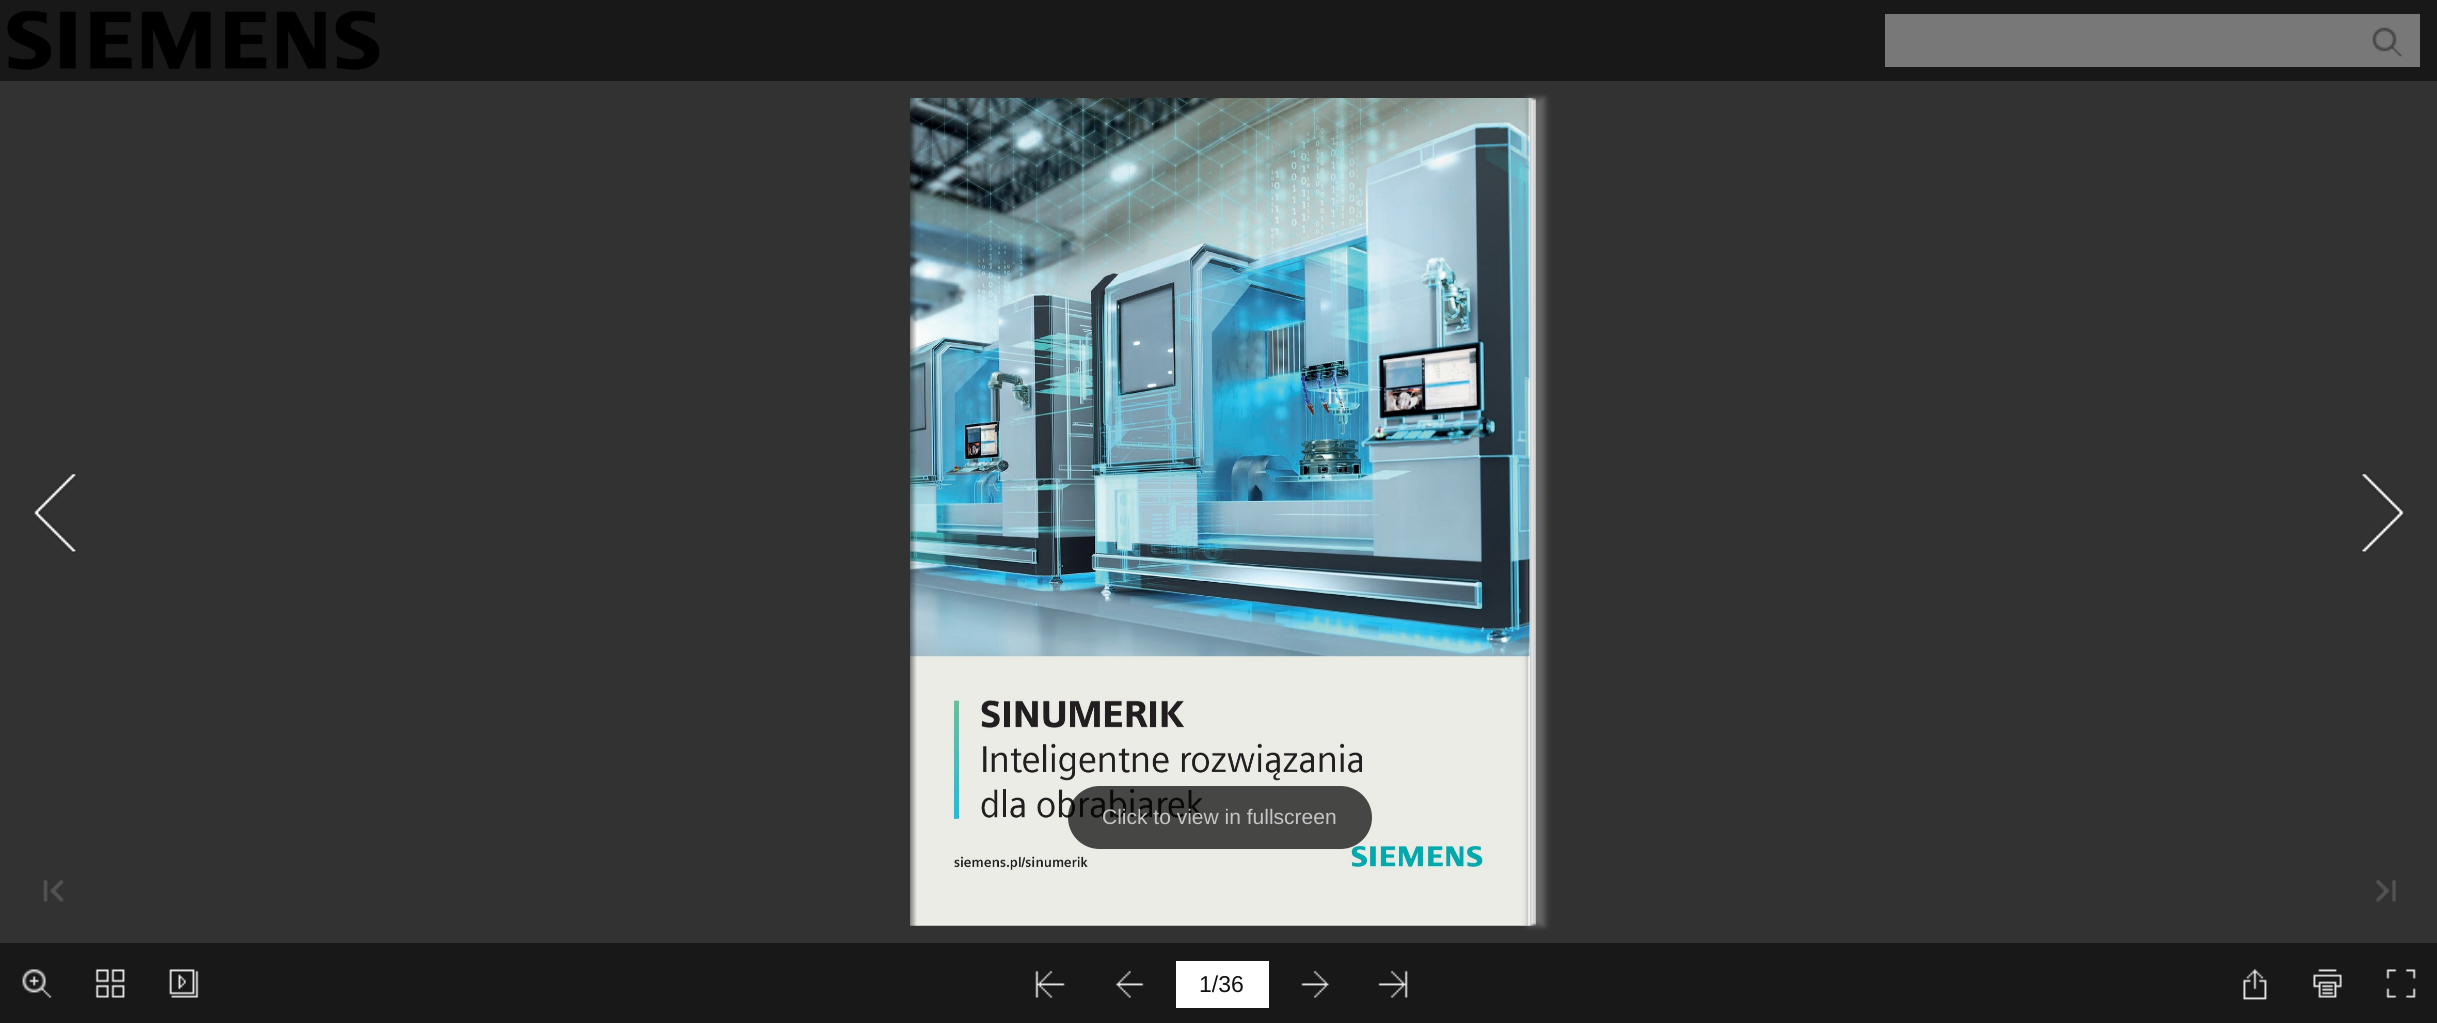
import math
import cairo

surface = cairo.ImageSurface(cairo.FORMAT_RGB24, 2437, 1023)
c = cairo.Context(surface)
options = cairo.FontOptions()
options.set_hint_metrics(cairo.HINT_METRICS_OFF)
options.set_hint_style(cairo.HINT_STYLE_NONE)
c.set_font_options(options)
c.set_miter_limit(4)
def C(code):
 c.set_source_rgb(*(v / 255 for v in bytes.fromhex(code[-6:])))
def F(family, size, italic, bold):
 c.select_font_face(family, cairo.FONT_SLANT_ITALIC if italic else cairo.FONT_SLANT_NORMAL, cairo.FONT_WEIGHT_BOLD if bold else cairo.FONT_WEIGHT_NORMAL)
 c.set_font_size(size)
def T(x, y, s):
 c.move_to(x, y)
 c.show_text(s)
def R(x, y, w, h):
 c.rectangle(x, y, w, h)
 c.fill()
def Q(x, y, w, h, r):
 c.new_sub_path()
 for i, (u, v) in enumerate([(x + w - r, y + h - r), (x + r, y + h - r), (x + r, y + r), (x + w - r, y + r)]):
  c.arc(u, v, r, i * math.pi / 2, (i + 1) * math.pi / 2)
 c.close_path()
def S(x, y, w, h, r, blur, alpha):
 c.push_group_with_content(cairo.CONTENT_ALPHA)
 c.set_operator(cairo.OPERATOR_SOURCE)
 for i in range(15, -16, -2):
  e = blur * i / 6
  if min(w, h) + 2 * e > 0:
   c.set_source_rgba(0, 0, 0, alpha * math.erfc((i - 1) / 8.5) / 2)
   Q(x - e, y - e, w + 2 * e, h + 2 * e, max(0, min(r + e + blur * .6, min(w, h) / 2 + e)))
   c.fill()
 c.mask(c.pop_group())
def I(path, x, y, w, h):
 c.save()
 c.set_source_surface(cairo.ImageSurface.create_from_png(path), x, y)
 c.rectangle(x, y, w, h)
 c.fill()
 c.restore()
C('323232')
c.paint()
C('181818')
R(0,0,2437,81)
I('1.png',7,11,373,59)
C('787878')
R(1885,14,535,53)
I('2.png',2372,27,30,30)
I('3.png',33,472,44,81)
I('4.png',2361,472,44,81)
I('5.png',910,98,620,828)
gradient = cairo.LinearGradient(910,512,917,512)
gradient.add_color_stop_rgba(0,0.078,0.078,0.078,.5)
gradient.add_color_stop_rgba(1,0.078,0.078,0.078,0)
c.set_source(gradient)
R(910,98,7,828)
c.save()
c.set_fill_rule(cairo.FILL_RULE_EVEN_ODD)
c.new_path()
c.move_to(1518,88)
c.line_to(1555,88)
c.line_to(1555,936)
c.line_to(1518,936)
c.close_path()
c.move_to(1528,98)
c.line_to(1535,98)
c.line_to(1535,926)
c.line_to(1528,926)
c.close_path()
c.clip()
C('7d7d7d')
S(1528,98,17,828,0,3,.7)
c.restore()
I('6.png',1529,98,7,828)
c.set_source_rgba(0,0,0,0.7)
Q(1068,786,304,63,31.5)
c.fill()
F('Liberation Sans',21,0,0)
C('c6c6c6')
T(1102,824,'Click to view in fullscreen')
I('7.png',43,880,21,22)
I('8.png',2376,880,20,22)
C('181818')
R(0,943,2437,80)
I('9.png',22,969,30,29)
I('10.png',95,969,30,29)
I('11.png',169,969,30,29)
I('12.png',1035,970,30,28)
I('13.png',1116,970,28,28)
C('ffffff')
R(1176,961,93,47)
F('Liberation Sans',23,0,0)
C('111111')
T(1199,992,'1/36')
I('14.png',1301,970,28,28)
I('15.png',1378,970,30,28)
I('16.png',2243,969,24,31)
I('17.png',2313,969,29,29)
I('18.png',2386,969,30,29)
surface.write_to_png('o.png')
